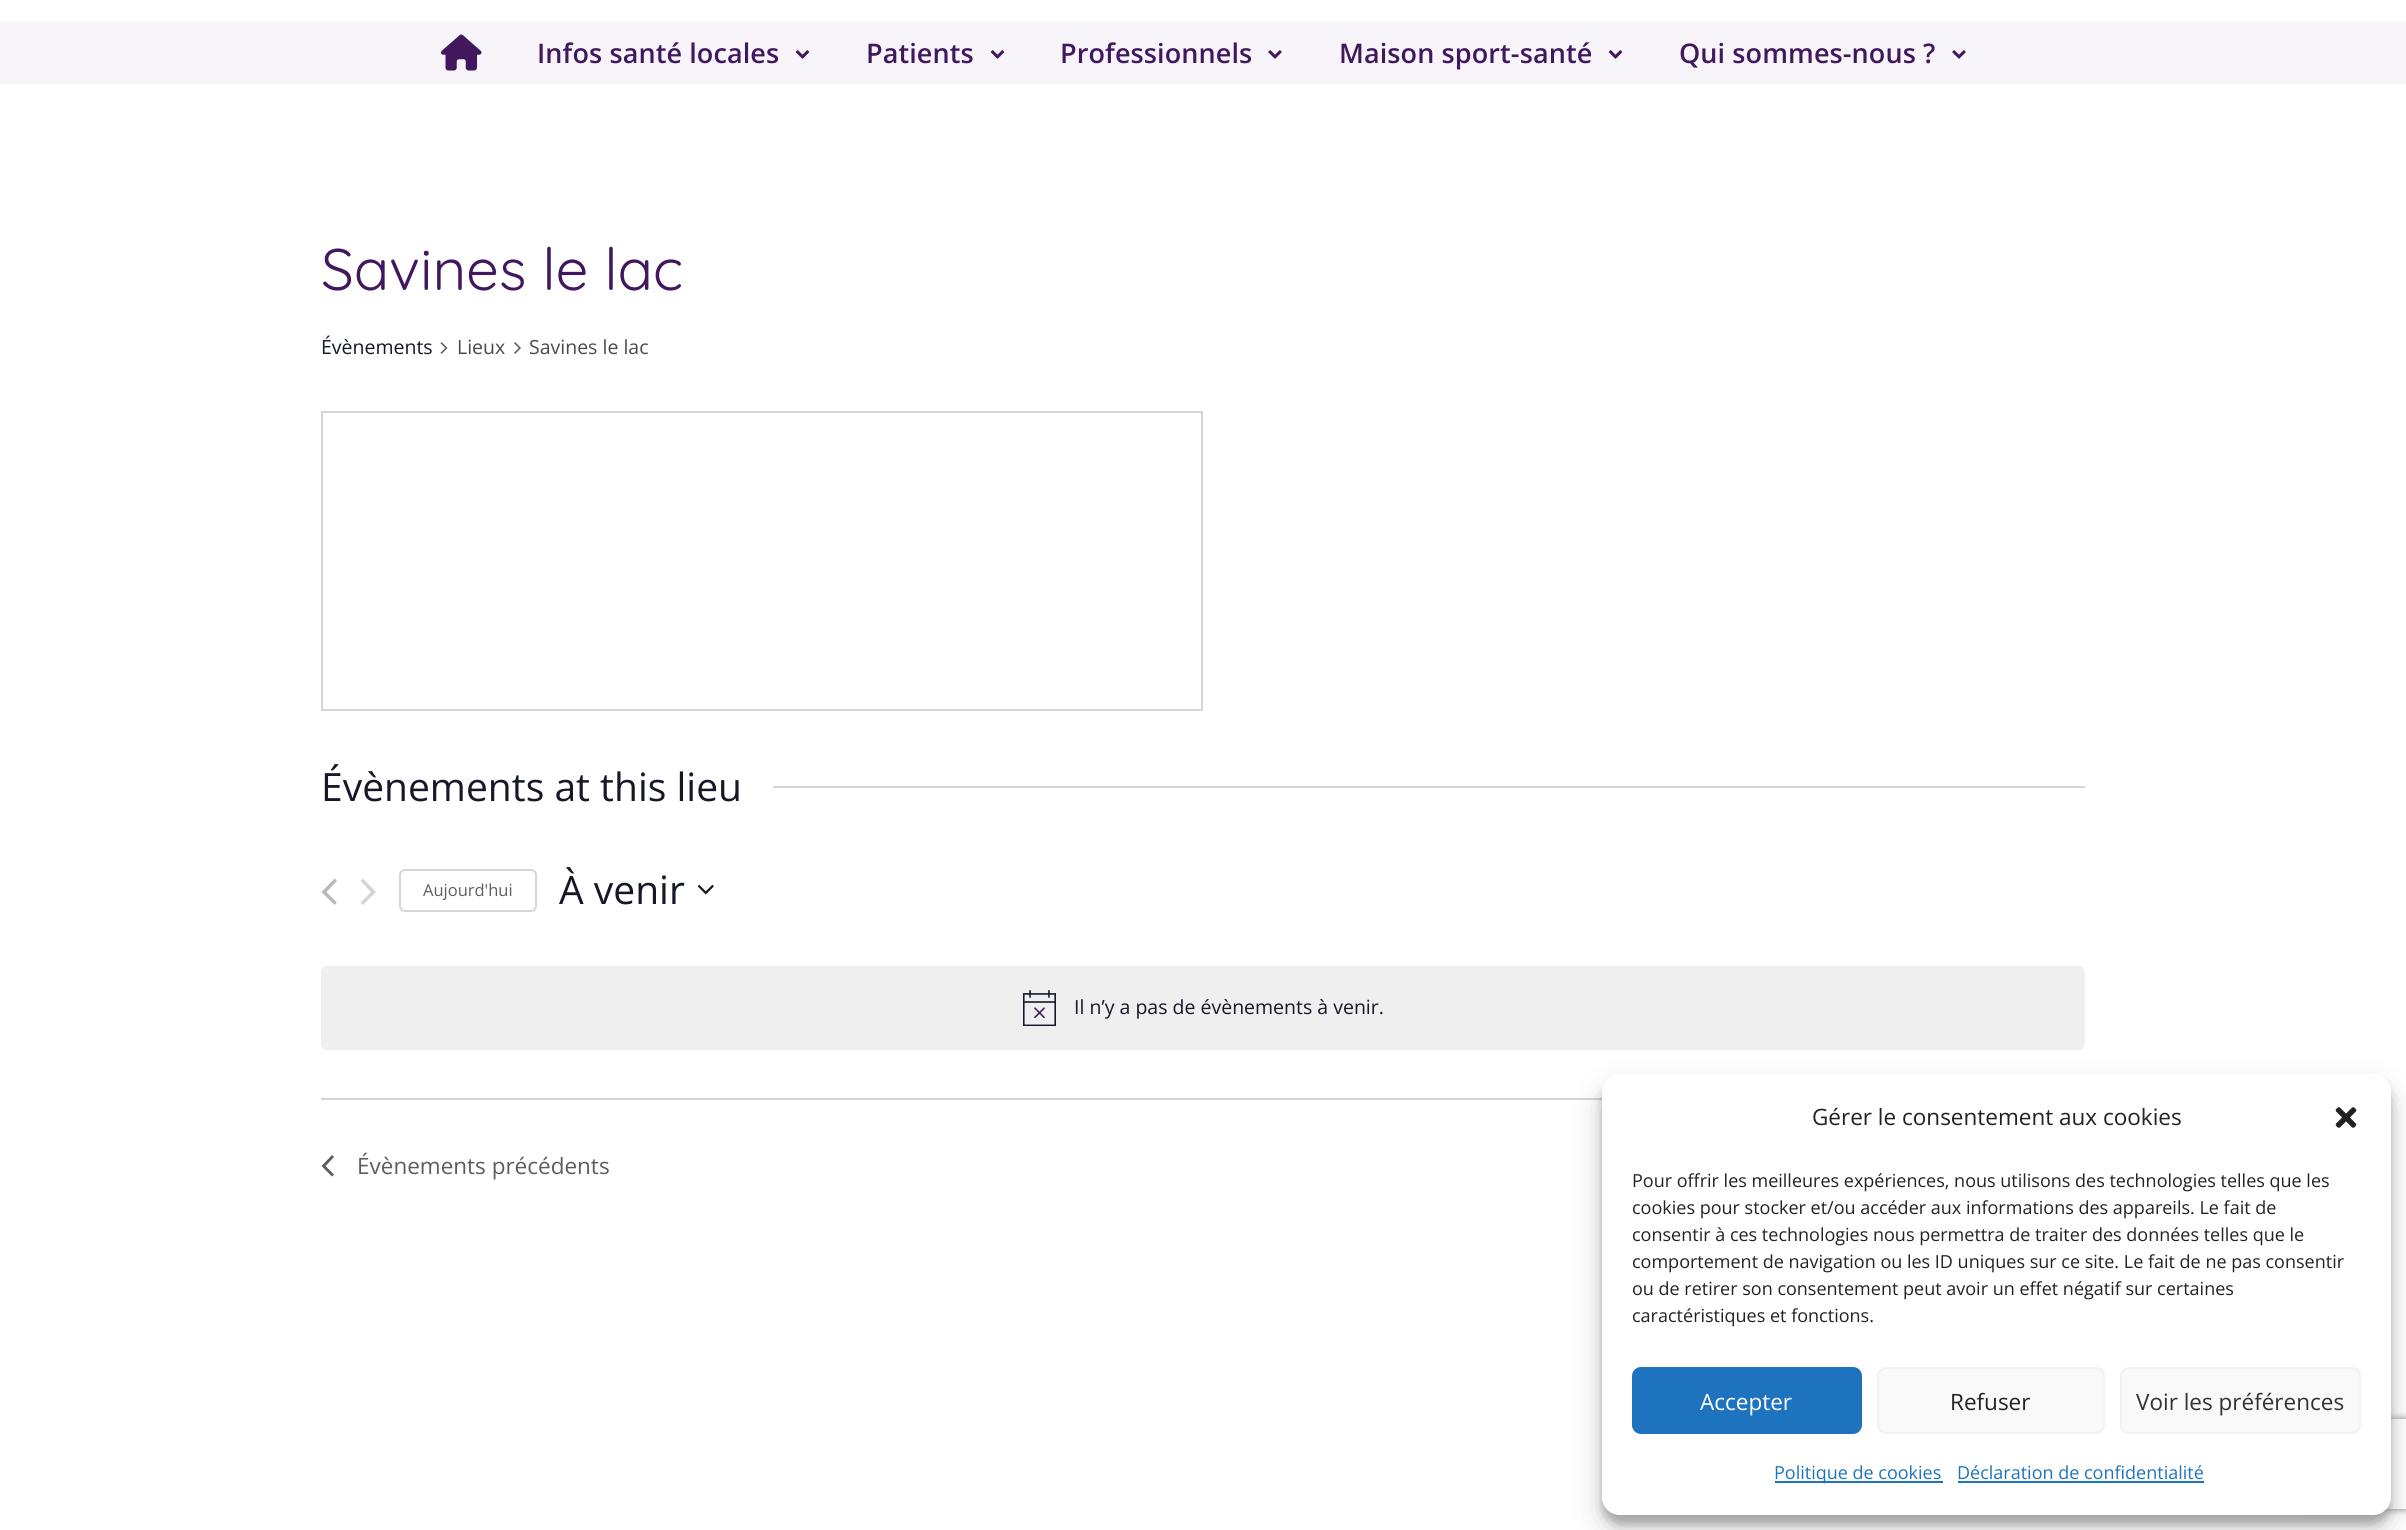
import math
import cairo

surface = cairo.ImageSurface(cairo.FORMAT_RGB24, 2406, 1530)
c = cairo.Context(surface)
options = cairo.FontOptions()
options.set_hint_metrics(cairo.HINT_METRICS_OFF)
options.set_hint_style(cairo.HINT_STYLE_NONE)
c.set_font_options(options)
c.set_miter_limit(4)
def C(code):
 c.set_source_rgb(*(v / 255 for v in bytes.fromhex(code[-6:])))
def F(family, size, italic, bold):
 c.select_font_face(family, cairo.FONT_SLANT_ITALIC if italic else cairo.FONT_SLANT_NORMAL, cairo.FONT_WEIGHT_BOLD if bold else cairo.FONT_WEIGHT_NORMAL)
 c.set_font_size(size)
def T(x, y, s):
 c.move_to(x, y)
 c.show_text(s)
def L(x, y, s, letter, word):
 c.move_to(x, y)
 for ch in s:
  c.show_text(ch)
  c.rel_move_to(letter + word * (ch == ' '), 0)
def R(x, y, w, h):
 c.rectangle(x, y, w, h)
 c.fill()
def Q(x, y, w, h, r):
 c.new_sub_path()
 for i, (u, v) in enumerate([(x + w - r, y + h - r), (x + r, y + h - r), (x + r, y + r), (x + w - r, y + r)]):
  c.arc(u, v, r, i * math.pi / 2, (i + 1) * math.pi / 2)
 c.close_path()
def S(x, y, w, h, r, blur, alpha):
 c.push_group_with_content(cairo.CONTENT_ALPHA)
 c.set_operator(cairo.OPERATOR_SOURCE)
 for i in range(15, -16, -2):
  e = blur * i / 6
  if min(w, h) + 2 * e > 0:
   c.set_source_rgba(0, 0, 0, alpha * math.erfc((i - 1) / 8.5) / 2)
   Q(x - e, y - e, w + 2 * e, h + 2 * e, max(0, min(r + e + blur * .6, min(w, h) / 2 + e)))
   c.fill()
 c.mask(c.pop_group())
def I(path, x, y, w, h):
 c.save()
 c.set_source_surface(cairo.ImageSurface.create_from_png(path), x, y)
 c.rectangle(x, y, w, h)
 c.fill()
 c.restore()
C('ffffff')
c.paint()
C('f7f4fa')
R(0,21,2406,63)
I('1.png',441,34,41,37)
F('Open Sans SemiBold',27,0,0)
C('41185e')
L(537,63,'Infos santé locales',.1,0)
I('2.png',795,50,15,9)
L(866,63,'Patients',.1,0)
I('2.png',990,50,15,9)
L(1060,63,'Professionnels',.1,0)
I('3.png',1268,50,14,9)
L(1339,63,'Maison sport-santé',.1,0)
I('2.png',1608,50,15,9)
L(1679,63,'Qui sommes-nous ?',.1,0)
I('3.png',1952,50,14,9)
F('Quicksand',58.5,0,0)
T(321,290,'Savines le lac')
F('Open Sans',19.5,0,0)
C('141827')
T(321,354,'Évènements')
I('4.png',440,342,8,12)
C('4a4a4a')
T(457,354,'Lieux')
I('5.png',514,342,7,12)
T(529,354,'Savines le lac')
c.rectangle(322,412,880,298)
C('d5d5d5')
c.stroke()
F('Open Sans',39,0,0)
C('141827')
T(321,801,'Évènements at this lieu')
C('d5d5d5')
R(773,786,1312,2)
C('bababa')
c.new_path()
c.move_to(337,902.5)
c.line_to(334.5,905)
c.line_to(321.5,892)
c.line_to(334.5,878.5)
c.line_to(337,881)
c.line_to(326.5,892)
c.close_path()
c.fill()
C('d5d5d5')
c.new_path()
c.move_to(360.5,881)
c.line_to(363,878.5)
c.line_to(376,892)
c.line_to(363,905)
c.line_to(360.5,902.5)
c.line_to(371,892)
c.close_path()
c.fill()
Q(400,870,136,41,5)
c.stroke()
F('Open Sans',16.5,0,0)
C('5d5d5d')
T(423,896,'Aujourd\'hui')
F('Open Sans',39,0,0)
C('141827')
T(559,904,'À venir')
I('6.png',698,884,16,11)
C('efeff0')
Q(321,966,1764,84,6)
c.fill()
I('7.png',1023,990,33,36)
F('Open Sans',19.5,0,0)
C('141827')
T(1074,1014,'Il n’y a pas de évènements à venir.')
C('d5d5d5')
R(321,1098,1281,2)
C('5d5d5d')
c.new_path()
c.move_to(334,1174.5)
c.line_to(332,1176.5)
c.line_to(321.5,1166)
c.line_to(332,1155)
c.line_to(334,1157)
c.line_to(325.5,1166)
c.close_path()
c.fill()
F('Open Sans',22.5,0,0)
T(357,1174,'Évènements précédents')
C('000000')
S(1602,1083,789,441,18,4.5,.23)
S(1602,1089,789,441,18,15,.19)
c.save()
c.set_fill_rule(cairo.FILL_RULE_EVEN_ODD)
c.new_path()
c.move_to(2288,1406)
c.line_to(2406,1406)
c.line_to(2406,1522)
c.line_to(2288,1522)
c.close_path()
c.move_to(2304,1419)
c.line_to(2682,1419)
c.curve_to(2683.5,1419,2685,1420.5,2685,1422)
c.line_to(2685,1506)
c.curve_to(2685,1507.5,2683.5,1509,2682,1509)
c.line_to(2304,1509)
c.curve_to(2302.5,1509,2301,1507.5,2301,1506)
c.line_to(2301,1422)
c.curve_to(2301,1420.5,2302.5,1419,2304,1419)
c.close_path()
c.clip()
C('808080')
S(2301,1419,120,90,3,4,1)
c.restore()
C('ffffff')
Q(1602,1074,789,441,18)
c.fill()
C('222222')
T(1812,1125,'Gérer le consentement aux cookies')
I('8.png',2335,1107,22,21)
F('Open Sans',18,0,0)
T(1632,1187,'Pour offrir les meilleures expériences, nous utilisons des technologies telles que les')
T(1632,1214,'cookies pour stocker et/ou accéder aux informations des appareils. Le fait de')
T(1632,1241,'consentir à ces technologies nous permettra de traiter des données telles que le')
T(1632,1268,'comportement de navigation ou les ID uniques sur ce site. Le fait de ne pas consentir')
T(1632,1295,'ou de retirer son consentement peut avoir un effet négatif sur certaines')
T(1632,1322,'caractéristiques et fonctions.')
C('1e73be')
Q(1633,1368,228,65,8)
c.fill_preserve()
c.stroke()
F('Open Sans',22.5,0,0)
C('ffffff')
T(1700,1410,'Accepter')
C('f9f9f9')
Q(1878,1368,226,65,8)
c.fill_preserve()
C('f2f2f2')
c.stroke()
C('222222')
T(1950,1410,'Refuser')
C('f9f9f9')
Q(2121,1368,239,65,8)
c.fill_preserve()
C('f2f2f2')
c.stroke()
C('333333')
T(2136,1410,'Voir les préférences')
C('1e73be')
R(1775,1481,168,2)
F('Open Sans',18,0,0)
T(1774,1479,'Politique de cookies')
T(1957,1479,'Déclaration de confidentialité')
R(1958,1481,246,2)
surface.write_to_png('o.png')
